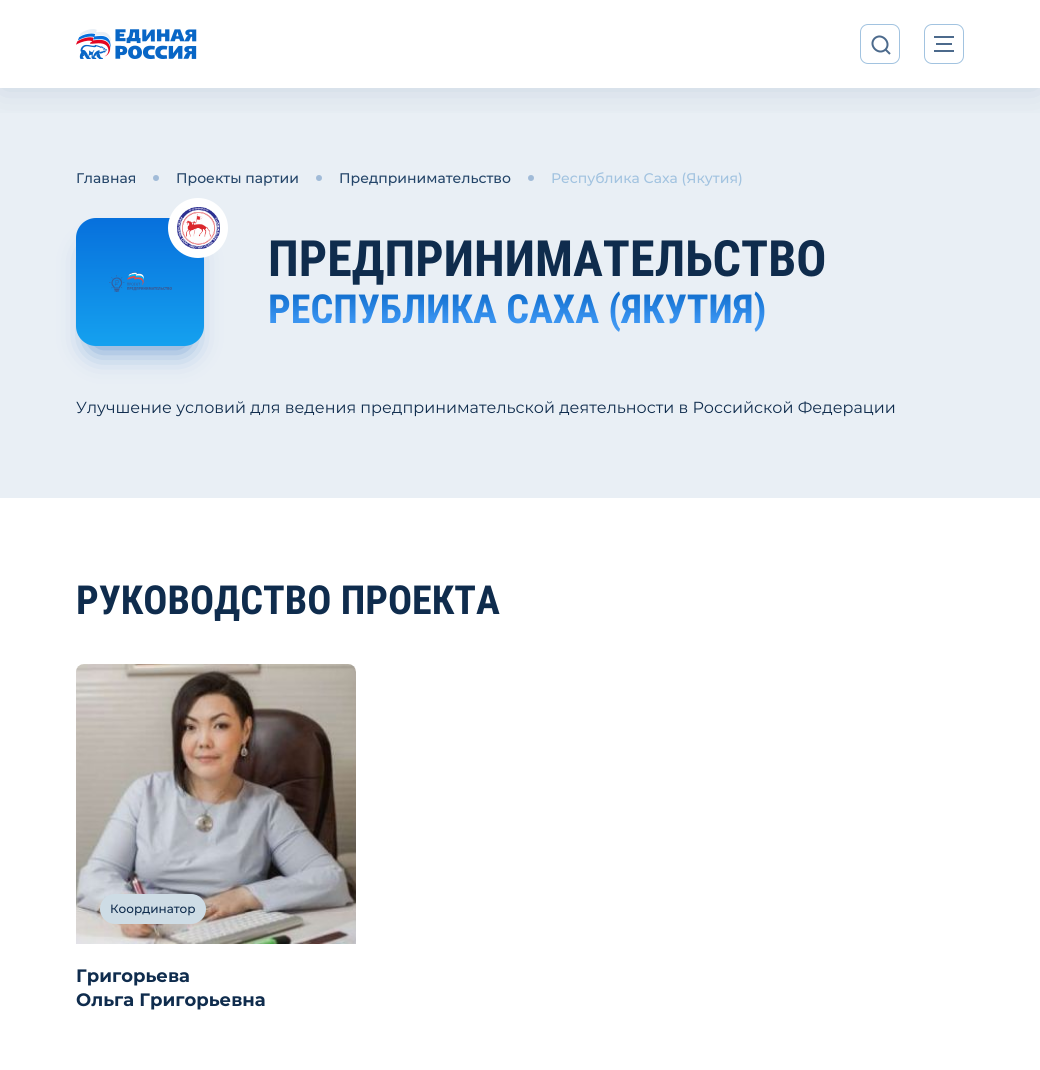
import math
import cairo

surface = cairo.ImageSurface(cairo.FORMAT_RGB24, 1040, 1070)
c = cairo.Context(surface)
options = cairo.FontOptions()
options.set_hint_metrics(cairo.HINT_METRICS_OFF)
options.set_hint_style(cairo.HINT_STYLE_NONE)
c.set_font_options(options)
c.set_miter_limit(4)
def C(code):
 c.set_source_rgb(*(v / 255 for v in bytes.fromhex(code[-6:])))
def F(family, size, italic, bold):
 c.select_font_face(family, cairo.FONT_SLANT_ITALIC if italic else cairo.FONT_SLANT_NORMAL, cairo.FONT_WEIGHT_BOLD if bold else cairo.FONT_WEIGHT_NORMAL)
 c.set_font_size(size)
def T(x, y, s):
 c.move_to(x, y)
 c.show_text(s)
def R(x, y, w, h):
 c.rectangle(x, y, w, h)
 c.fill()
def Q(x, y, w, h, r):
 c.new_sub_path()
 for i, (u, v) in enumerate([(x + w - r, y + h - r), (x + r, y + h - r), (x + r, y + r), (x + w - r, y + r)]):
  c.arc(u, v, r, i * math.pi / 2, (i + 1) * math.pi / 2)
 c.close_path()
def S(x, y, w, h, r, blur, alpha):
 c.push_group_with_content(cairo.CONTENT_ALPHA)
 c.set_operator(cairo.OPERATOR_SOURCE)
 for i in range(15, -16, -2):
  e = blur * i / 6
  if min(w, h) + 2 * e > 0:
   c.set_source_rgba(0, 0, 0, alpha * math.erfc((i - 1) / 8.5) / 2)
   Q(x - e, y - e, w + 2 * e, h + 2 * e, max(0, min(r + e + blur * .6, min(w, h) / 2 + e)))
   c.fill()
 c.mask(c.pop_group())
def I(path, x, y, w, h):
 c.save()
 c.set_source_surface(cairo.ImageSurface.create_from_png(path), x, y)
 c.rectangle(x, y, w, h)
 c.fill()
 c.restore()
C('ffffff')
c.paint()
C('e9eff5')
R(0,88,1040,410)
c.save()
c.rectangle(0,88,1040,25)
c.clip()
C('4c6a8c')
S(0,1,1040,88,0,18.5,.2)
c.restore()
I('1.png',76,29,121,30)
Q(860.5,24.5,39,39,7.5)
C('a2c3e0')
c.set_line_width(1)
c.stroke()
c.new_path()
c.move_to(874.5,38.5)
c.curve_to(881.5,32,892,42.5,885.5,49.5)
c.curve_to(878.5,56,868,45.5,874.5,38.5)
c.close_path()
c.move_to(890,54)
c.line_to(885,49)
C('4c6a8c')
c.set_line_width(2)
c.stroke()
Q(924.5,24.5,39,39,7.5)
C('a2c3e0')
c.set_line_width(1)
c.stroke()
C('4c6a8c')
R(936,43,16,2)
R(934,36,20,2)
R(934,50,20,2)
F('Montserrat Medium',14,0,0)
C('244569')
T(76,183,'Главная')
C('a1bbd8')
c.new_path()
c.arc(156,178,3,0,2 * math.pi)
c.fill()
C('244569')
T(176,183,'Проекты партии')
C('a1bbd8')
c.new_path()
c.arc(319,178,3,0,2 * math.pi)
c.fill()
C('244569')
T(339,183,'Предпринимательство')
C('a1bbd8')
c.new_path()
c.arc(531,178,3,0,2 * math.pi)
c.fill()
C('a2c3e0')
T(551,183,'Республика Саха (Якутия)')
C('0d5bb6')
S(92,252,96,96,4,14.5,.64)
gradient = cairo.LinearGradient(140,218,140,346)
gradient.add_color_stop_rgba(0,0.027,0.439,0.863,1)
gradient.add_color_stop_rgba(1,0.082,0.631,0.937,1)
c.set_source(gradient)
Q(76,218,128,128,20)
c.fill()
C('ffffff')
c.arc(198,228,30,0,2 * math.pi)
c.fill()
I('2.png',177,207,43,42)
I('3.png',109,272,63,20)
F('Roboto Condensed',50,0,1)
C('0f2c4d')
T(268,276,'ПРЕДПРИНИМАТЕЛЬСТВО')
F('Roboto Condensed',40,0,1)
gradient = cairo.LinearGradient(547,287,547,333)
gradient.add_color_stop_rgba(0,0.031,0.4,0.776,1)
gradient.add_color_stop_rgba(.7,0.22,0.576,0.941,1)
gradient.add_color_stop_rgba(1,0.286,0.612,0.945,1)
c.set_source(gradient)
T(268,323,'РЕСПУБЛИКА САХА (ЯКУТИЯ)')
F('Montserrat',16,0,0)
C('0f2c4d')
T(76,413,'Улучшение условий для ведения предпринимательской деятельности в Российской Федерации')
F('Roboto Condensed',40,0,1)
T(76,614,'РУКОВОДСТВО ПРОЕКТА')
I('4.png',76,664,280,280)
C('cedce5')
Q(100,894,106,30,15)
c.fill()
F('Montserrat Medium',12,0,0)
C('0f2c4d')
T(110,913,'Координатор')
F('Montserrat',18,0,1)
T(76,982,'Григорьева')
T(76,1006,'Ольга Григорьевна')
surface.write_to_png('o.png')
